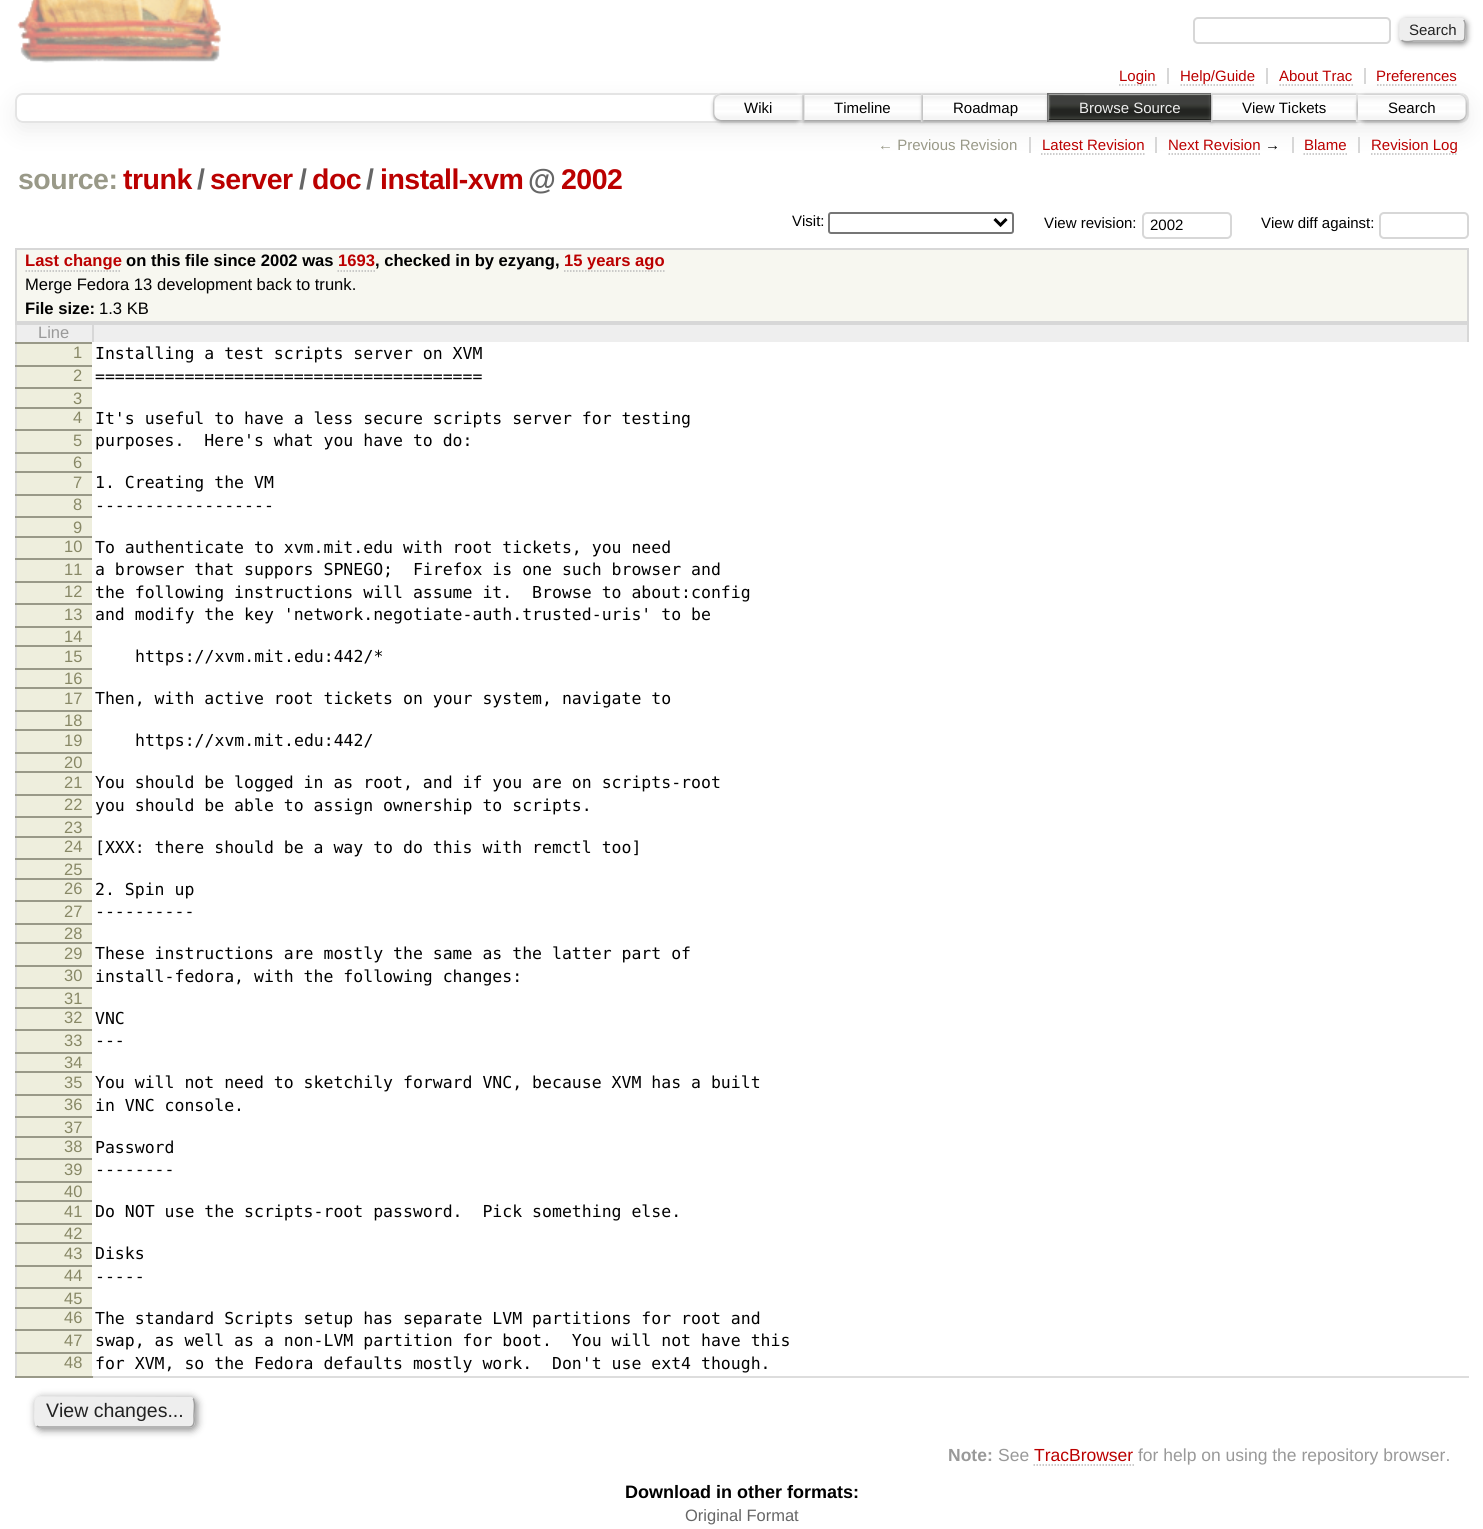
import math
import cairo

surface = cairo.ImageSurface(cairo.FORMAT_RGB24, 1483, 1529)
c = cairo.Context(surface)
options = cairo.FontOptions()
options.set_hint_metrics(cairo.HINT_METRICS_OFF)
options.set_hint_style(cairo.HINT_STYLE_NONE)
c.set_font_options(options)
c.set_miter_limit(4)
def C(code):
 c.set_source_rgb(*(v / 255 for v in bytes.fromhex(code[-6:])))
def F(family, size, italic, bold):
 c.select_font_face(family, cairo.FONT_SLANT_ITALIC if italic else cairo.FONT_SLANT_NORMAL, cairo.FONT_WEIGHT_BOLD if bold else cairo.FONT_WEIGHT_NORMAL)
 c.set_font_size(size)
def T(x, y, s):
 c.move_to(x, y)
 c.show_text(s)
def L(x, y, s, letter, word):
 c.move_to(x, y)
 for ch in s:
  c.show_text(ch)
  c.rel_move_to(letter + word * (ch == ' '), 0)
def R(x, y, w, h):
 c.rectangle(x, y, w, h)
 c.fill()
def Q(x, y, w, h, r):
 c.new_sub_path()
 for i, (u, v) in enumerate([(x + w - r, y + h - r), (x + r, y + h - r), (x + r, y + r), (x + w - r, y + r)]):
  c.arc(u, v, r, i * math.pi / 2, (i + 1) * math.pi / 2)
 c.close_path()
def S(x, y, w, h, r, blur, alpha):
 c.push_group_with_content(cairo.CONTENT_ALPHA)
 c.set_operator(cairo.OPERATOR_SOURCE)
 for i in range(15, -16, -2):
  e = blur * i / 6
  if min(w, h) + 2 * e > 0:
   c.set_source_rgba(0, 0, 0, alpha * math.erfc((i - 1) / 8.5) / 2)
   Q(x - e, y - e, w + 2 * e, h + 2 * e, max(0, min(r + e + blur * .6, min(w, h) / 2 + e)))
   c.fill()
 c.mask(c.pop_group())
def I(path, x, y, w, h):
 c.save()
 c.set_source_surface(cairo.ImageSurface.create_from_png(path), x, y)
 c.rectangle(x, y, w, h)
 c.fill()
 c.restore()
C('ffffff')
c.paint()
I('1.png',17,0,204,63)
Q(1194,18,196,25,4)
C('d7d7d7')
c.stroke()
C('888888')
S(1401,20,66,24,5,3,1)
C('eeeeee')
Q(1400,18,66,24,5)
c.fill()
c.new_path()
c.move_to(1463.5,20)
c.curve_to(1466,22,1465,27,1465,30)
c.curve_to(1465,43,1465.5,41,1451.5,41)
c.line_to(1413.5,41)
c.curve_to(1413,41,1404,43,1401.5,40)
C('9f9f9f')
c.set_line_width(1.5)
c.stroke()
c.new_path()
c.move_to(1401.5,40)
c.curve_to(1399,38,1400,33,1400,30)
c.curve_to(1400,17,1399.5,19,1413.5,19)
c.line_to(1451.5,19)
c.curve_to(1452,19,1461,17,1463.5,20)
C('eeeeee')
c.stroke()
F('Liberation Sans',15,0,0)
C('222222')
T(1409,35,'Search')
c.save()
c.set_fill_rule(cairo.FILL_RULE_EVEN_ODD)
c.new_path()
c.move_to(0,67)
c.line_to(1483,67)
c.line_to(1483,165)
c.line_to(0,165)
c.close_path()
c.move_to(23,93)
c.line_to(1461,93)
c.curve_to(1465.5,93,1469,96.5,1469,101)
c.line_to(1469,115)
c.curve_to(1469,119.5,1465.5,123,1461,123)
c.line_to(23,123)
c.curve_to(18.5,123,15,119.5,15,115)
c.line_to(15,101)
c.curve_to(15,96.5,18.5,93,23,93)
c.close_path()
c.clip()
C('eeeeee')
S(15,101,1454,30,8,11,1)
c.restore()
C('d7d7d7')
R(1167,68,2,16)
c.new_path()
c.move_to(1119,85)
c.line_to(1156.5,85)
C('bbbbbb')
c.set_dash([1.5,1.5])
c.stroke()
C('bb0000')
T(1119,81,'Login')
C('d7d7d7')
R(1266,68,2,16)
c.new_path()
c.move_to(1180.5,85)
c.line_to(1255.5,85)
C('bbbbbb')
c.stroke()
C('bb0000')
T(1180,81,'Help/Guide')
C('d7d7d7')
R(1364,68,2,16)
C('bb0000')
T(1279,81,'About Trac')
c.new_path()
c.move_to(1279.5,85)
c.line_to(1353,85)
C('bbbbbb')
c.stroke()
C('bb0000')
T(1376,81,'Preferences')
c.new_path()
c.move_to(1377,85)
c.line_to(1458,85)
C('bbbbbb')
c.stroke()
Q(16,94,1452,28,7)
C('e4e4e4')
c.set_line_width(2)
c.set_dash([])
c.stroke()
C('ffffff')
c.new_path()
c.move_to(721,93)
c.line_to(804,93)
c.line_to(804,122)
c.line_to(721,122)
c.curve_to(716.5,122,713,118.5,713,114)
c.line_to(713,101)
c.curve_to(713,96.5,716.5,93,721,93)
c.close_path()
c.fill()
I('2.png',713,95,89,25)
c.new_path()
c.move_to(721,94)
c.line_to(803,94)
c.line_to(803,121)
c.line_to(721,121)
c.curve_to(717,121,714,118,714,114)
c.line_to(714,101)
c.curve_to(714,97,717,94,721,94)
c.close_path()
C('e4e4e4')
c.stroke()
c.save()
c.set_fill_rule(cairo.FILL_RULE_EVEN_ODD)
c.new_path()
c.move_to(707,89)
c.line_to(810,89)
c.line_to(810,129)
c.line_to(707,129)
c.close_path()
c.move_to(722,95)
c.line_to(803,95)
c.line_to(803,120)
c.line_to(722,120)
c.curve_to(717.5,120,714,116.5,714,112)
c.line_to(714,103)
c.curve_to(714,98.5,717.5,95,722,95)
c.close_path()
c.clip()
C('999999')
S(714,96,89,26,8,2,1)
c.restore()
C('000000')
T(744,113,'Wiki')
C('ffffff')
R(805,99,2,20)
I('3.png',802,95,119,25)
c.rectangle(804,94,118,27)
C('e4e4e4')
c.stroke()
c.save()
c.set_fill_rule(cairo.FILL_RULE_EVEN_ODD)
c.new_path()
c.move_to(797,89)
c.line_to(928,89)
c.line_to(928,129)
c.line_to(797,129)
c.close_path()
c.move_to(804,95)
c.line_to(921,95)
c.line_to(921,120)
c.line_to(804,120)
c.close_path()
c.clip()
C('999999')
S(804,96,117,26,0,2,1)
c.restore()
C('000000')
T(834,113,'Timeline')
C('ffffff')
R(923,95,2,25)
I('4.png',923,95,124,25)
c.rectangle(922,94,126,27)
C('e4e4e4')
c.stroke()
c.save()
c.set_fill_rule(cairo.FILL_RULE_EVEN_ODD)
c.new_path()
c.move_to(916,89)
c.line_to(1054,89)
c.line_to(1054,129)
c.line_to(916,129)
c.close_path()
c.move_to(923,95)
c.line_to(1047,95)
c.line_to(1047,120)
c.line_to(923,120)
c.close_path()
c.clip()
C('999999')
S(923,96,124,26,0,2,1)
c.restore()
C('000000')
T(953,113,'Roadmap')
c.rectangle(1048,94,163,27)
C('666666')
c.stroke()
C('999999')
S(1049,96,162,26,0,2,1)
C('000000')
R(1049,95,162,25)
I('5.png',1048,94,163,26)
C('eeeeee')
T(1079,113,'Browse Source')
C('ffffff')
R(1213,95,2,25)
I('6.png',1210,95,146,25)
c.rectangle(1212,94,145,27)
C('e4e4e4')
c.stroke()
c.save()
c.set_fill_rule(cairo.FILL_RULE_EVEN_ODD)
c.new_path()
c.move_to(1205,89)
c.line_to(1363,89)
c.line_to(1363,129)
c.line_to(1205,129)
c.close_path()
c.move_to(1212,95)
c.line_to(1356,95)
c.line_to(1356,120)
c.line_to(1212,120)
c.close_path()
c.clip()
C('999999')
S(1212,96,144,26,0,2,1)
c.restore()
C('000000')
T(1242,113,'View Tickets')
C('ffffff')
c.new_path()
c.move_to(1356,93)
c.line_to(1459,93)
c.curve_to(1463.5,93,1467,96.5,1467,101)
c.line_to(1467,114)
c.curve_to(1467,118.5,1463.5,122,1459,122)
c.line_to(1356,122)
c.close_path()
c.fill()
I('7.png',1358,95,109,25)
c.new_path()
c.move_to(1357,94)
c.line_to(1459,94)
c.curve_to(1463,94,1466,97,1466,101)
c.line_to(1466,114)
c.curve_to(1466,118,1463,121,1459,121)
c.line_to(1357,121)
c.close_path()
C('e4e4e4')
c.stroke()
c.save()
c.set_fill_rule(cairo.FILL_RULE_EVEN_ODD)
c.new_path()
c.move_to(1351,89)
c.line_to(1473,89)
c.line_to(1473,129)
c.line_to(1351,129)
c.close_path()
c.move_to(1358,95)
c.line_to(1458,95)
c.curve_to(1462.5,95,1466,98.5,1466,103)
c.line_to(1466,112)
c.curve_to(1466,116.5,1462.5,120,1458,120)
c.line_to(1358,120)
c.close_path()
c.clip()
C('999999')
S(1358,96,108,26,8,2,1)
c.restore()
C('000000')
T(1388,113,'Search')
C('d7d7d7')
R(1029,137,2,16)
C('999988')
T(878,150,'← Previous Revision')
C('d7d7d7')
R(1155,137,2,16)
C('bb0000')
T(1042,150,'Latest Revision')
c.new_path()
c.move_to(1041,154)
c.line_to(1144.5,154)
C('bbbbbb')
c.set_line_width(1.5)
c.set_dash([1.5,1.5])
c.stroke()
C('d7d7d7')
R(1292,137,2,16)
C('bb0000')
T(1168,150,'Next Revision')
c.new_path()
c.move_to(1168.5,154)
c.line_to(1261.5,154)
C('bbbbbb')
c.stroke()
C('000000')
T(1265,150,'→')
C('d7d7d7')
R(1358,137,2,16)
C('bb0000')
T(1304,150,'Blame')
c.new_path()
c.move_to(1303.5,154)
c.line_to(1347,154)
C('bbbbbb')
c.stroke()
c.new_path()
c.move_to(1371,154)
c.line_to(1458,154)
c.stroke()
C('bb0000')
T(1371,150,'Revision Log')
F('Liberation Sans',28.5,0,1)
C('999988')
L(18,189,'source:',-.5,0)
C('bb0000')
L(123,189,'trunk',-.5,0)
C('666666')
L(197,189,'/',-.5,0)
C('bb0000')
L(210,189,'server',-.5,0)
C('666666')
L(299,189,'/',-.5,0)
C('bb0000')
L(312,189,'doc',-.5,0)
C('666666')
L(366,189,'/',-.5,0)
C('bb0000')
L(380,189,'install-xvm',-.5,0)
C('666666')
L(528,189,'@',-.5,0)
C('bb0000')
L(561,189,'2002',-.5,0)
F('Liberation Sans',15,0,0)
C('000000')
T(792,226,'Visit:')
Q(829,213,184,20,2)
C('767676')
c.set_line_width(2)
c.set_dash([])
c.stroke()
c.new_path()
c.move_to(994.5,219)
c.line_to(1000.5,225)
c.line_to(1006.5,219)
C('000000')
c.set_line_width(3)
c.stroke()
T(1044,228,'View revision:')
Q(1143,213,88,25,4)
C('d7d7d7')
c.set_line_width(2)
c.stroke()
C('000000')
T(1150,230,'2002')
T(1261,228,'View diff against:')
Q(1380,213,88,25,4)
C('d7d7d7')
c.stroke()
C('f7f7f0')
R(17,250,1450,71)
C('d7d7d7')
R(15,248,1454,2)
R(1467,248,2,75)
R(15,321,1454,2)
R(15,248,2,75)
F('Liberation Sans',16.6,0,1)
C('bb0000')
T(25,266,'Last change')
c.new_path()
c.move_to(25.5,271)
c.line_to(121.5,271)
C('bbbbbb')
c.set_line_width(1.5)
c.set_dash([1.5,1.5])
c.stroke()
C('000000')
T(126,266,'on this file since 2002 was')
C('bb0000')
T(338,266,'1693')
c.new_path()
c.move_to(337.5,271)
c.line_to(375,271)
C('bbbbbb')
c.stroke()
C('000000')
T(375,266,', checked in by ezyang,')
C('bb0000')
T(564,266,'15 years ago')
c.new_path()
c.move_to(564,271)
c.line_to(664.5,271)
C('bbbbbb')
c.stroke()
F('Liberation Sans',16.6,0,0)
C('000000')
T(25,290,'Merge Fedora 13 development back to trunk.')
F('Liberation Sans',16.6,0,1)
T(25,314,'File size:')
F('Liberation Sans',16.6,0,0)
T(99,314,'1.3 KB')
C('dddddd')
R(93,1376,1376,2)
R(15,323,2,1054)
C('eeeeee')
R(94,325,1373,17)
C('d7d7d7')
R(15,323,1454,2)
R(1467,323,2,21)
C('eeeeee')
R(17,325,75,17)
C('d7d7d7')
R(92,323,2,21)
C('999988')
R(15,342,78,2)
F('Liberation Sans',16.5,0,0)
C('999999')
T(38,338,'Line')
C('eeeedd')
R(17,344,75,21)
C('999988')
R(15,365,78,2)
C('888866')
T(73,358,'1')
C('ffffff')
R(92,342,1377,24)
F('DejaVu Sans Mono',16.5,0,0)
C('000000')
T(95,359,'Installing a test scripts server on XVM')
C('eeeedd')
R(17,367,75,20)
C('999988')
R(15,387,78,2)
F('Liberation Sans',16.5,0,0)
C('888866')
T(73,381,'2')
C('ffffff')
R(92,366,1,23)
F('DejaVu Sans Mono',16.5,0,0)
C('000000')
T(95,382,'=======================================')
C('eeeedd')
R(17,389,75,18)
C('999988')
R(15,407,78,2)
F('Liberation Sans',16.5,0,0)
C('888866')
T(73,404,'3')
C('999988')
R(15,429,78,2)
C('ffffff')
R(92,407,1,24)
C('eeeedd')
R(17,409,75,20)
C('888866')
T(73,423,'4')
F('DejaVu Sans Mono',16.5,0,0)
C('000000')
T(95,424,'It\'s useful to have a less secure scripts server for testing')
C('eeeedd')
R(17,431,75,21)
C('999988')
R(15,452,78,2)
F('Liberation Sans',16.5,0,0)
C('888866')
T(73,446,'5')
C('999988')
R(15,471,78,2)
C('ffffff')
R(92,452,1,21)
F('DejaVu Sans Mono',16.5,0,0)
C('000000')
T(95,446,'purposes.  Here\'s what you have to do:')
C('eeeedd')
R(17,454,75,17)
F('Liberation Sans',16.5,0,0)
C('888866')
T(73,468,'6')
C('eeeedd')
R(17,473,75,21)
C('999988')
R(15,494,78,2)
C('888866')
T(73,488,'7')
C('999988')
R(15,516,78,2)
C('ffffff')
R(92,494,1,24)
F('DejaVu Sans Mono',16.5,0,0)
C('000000')
T(95,488,'1. Creating the VM')
C('eeeedd')
R(17,496,75,20)
F('Liberation Sans',16.5,0,0)
C('888866')
T(73,510,'8')
F('DejaVu Sans Mono',16.5,0,0)
C('000000')
T(95,511,'------------------')
C('eeeedd')
R(17,518,75,18)
C('999988')
R(15,536,78,2)
F('Liberation Sans',16.5,0,0)
C('888866')
T(73,533,'9')
C('999988')
R(15,558,78,2)
C('ffffff')
R(92,536,1,24)
C('eeeedd')
R(17,538,75,20)
C('888866')
T(64,552,'10')
F('DejaVu Sans Mono',16.5,0,0)
C('000000')
T(95,553,'To authenticate to xvm.mit.edu with root tickets, you need')
C('eeeedd')
R(17,560,75,21)
C('999988')
R(15,581,78,2)
F('Liberation Sans',16.5,0,0)
C('888866')
T(64,575,'11')
C('999988')
R(15,603,78,2)
C('ffffff')
R(92,581,1,24)
F('DejaVu Sans Mono',16.5,0,0)
C('000000')
T(95,575,'a browser that suppors SPNEGO;  Firefox is one such browser and')
C('eeeedd')
R(17,583,75,20)
F('Liberation Sans',16.5,0,0)
C('888866')
T(64,597,'12')
F('DejaVu Sans Mono',16.5,0,0)
C('000000')
T(95,598,'the following instructions will assume it.  Browse to about:config')
C('eeeedd')
R(17,605,75,21)
C('999988')
R(15,626,78,2)
F('Liberation Sans',16.5,0,0)
C('888866')
T(64,620,'13')
C('999988')
R(15,645,78,2)
C('ffffff')
R(92,626,1,21)
F('DejaVu Sans Mono',16.5,0,0)
C('000000')
T(95,620,'and modify the key \'network.negotiate-auth.trusted-uris\' to be')
C('eeeedd')
R(17,628,75,17)
F('Liberation Sans',16.5,0,0)
C('888866')
T(64,642,'14')
C('eeeedd')
R(17,647,75,21)
C('999988')
R(15,668,78,2)
C('888866')
T(64,662,'15')
C('999988')
R(15,687,78,2)
C('ffffff')
R(92,668,1,21)
F('DejaVu Sans Mono',16.5,0,0)
C('000000')
T(135,662,'https://xvm.mit.edu:442/*')
C('eeeedd')
R(17,670,75,17)
F('Liberation Sans',16.5,0,0)
C('888866')
T(64,684,'16')
C('eeeedd')
R(17,689,75,21)
C('999988')
R(15,710,78,2)
C('888866')
T(64,704,'17')
C('999988')
R(15,729,78,2)
C('ffffff')
R(92,710,1,21)
F('DejaVu Sans Mono',16.5,0,0)
C('000000')
T(95,704,'Then, with active root tickets on your system, navigate to')
C('eeeedd')
R(17,712,75,17)
F('Liberation Sans',16.5,0,0)
C('888866')
T(64,726,'18')
C('eeeedd')
R(17,731,75,21)
C('999988')
R(15,752,78,2)
C('888866')
T(64,746,'19')
C('999988')
R(15,771,78,2)
C('ffffff')
R(92,752,1,21)
F('DejaVu Sans Mono',16.5,0,0)
C('000000')
T(135,746,'https://xvm.mit.edu:442/')
C('eeeedd')
R(17,754,75,17)
F('Liberation Sans',16.5,0,0)
C('888866')
T(64,768,'20')
C('eeeedd')
R(17,773,75,21)
C('999988')
R(15,794,78,2)
C('888866')
T(64,788,'21')
C('999988')
R(15,816,78,2)
C('ffffff')
R(92,794,1,24)
F('DejaVu Sans Mono',16.5,0,0)
C('000000')
T(95,788,'You should be logged in as root, and if you are on scripts-root')
C('eeeedd')
R(17,796,75,20)
F('Liberation Sans',16.5,0,0)
C('888866')
T(64,810,'22')
F('DejaVu Sans Mono',16.5,0,0)
C('000000')
T(95,811,'you should be able to assign ownership to scripts.')
C('eeeedd')
R(17,818,75,18)
C('999988')
R(15,836,78,2)
F('Liberation Sans',16.5,0,0)
C('888866')
T(64,833,'23')
C('999988')
R(15,858,78,2)
C('ffffff')
R(92,836,1,24)
C('eeeedd')
R(17,838,75,20)
C('888866')
T(64,852,'24')
F('DejaVu Sans Mono',16.5,0,0)
C('000000')
T(95,853,'[XXX: there should be a way to do this with remctl too]')
C('eeeedd')
R(17,860,75,18)
C('999988')
R(15,878,78,2)
F('Liberation Sans',16.5,0,0)
C('888866')
T(64,875,'25')
C('999988')
R(15,900,78,2)
C('ffffff')
R(92,878,1,24)
C('eeeedd')
R(17,880,75,20)
C('888866')
T(64,894,'26')
F('DejaVu Sans Mono',16.5,0,0)
C('000000')
T(95,895,'2. Spin up')
C('eeeedd')
R(17,902,75,21)
C('999988')
R(15,923,78,2)
F('Liberation Sans',16.5,0,0)
C('888866')
T(64,917,'27')
C('999988')
R(15,942,78,2)
C('ffffff')
R(92,923,1,21)
F('DejaVu Sans Mono',16.5,0,0)
C('000000')
T(95,917,'----------')
C('eeeedd')
R(17,925,75,17)
F('Liberation Sans',16.5,0,0)
C('888866')
T(64,939,'28')
C('eeeedd')
R(17,944,75,21)
C('999988')
R(15,965,78,2)
C('888866')
T(64,959,'29')
C('999988')
R(15,987,78,2)
C('ffffff')
R(92,965,1,24)
F('DejaVu Sans Mono',16.5,0,0)
C('000000')
T(95,959,'These instructions are mostly the same as the latter part of')
C('eeeedd')
R(17,967,75,20)
F('Liberation Sans',16.5,0,0)
C('888866')
T(64,981,'30')
F('DejaVu Sans Mono',16.5,0,0)
C('000000')
T(95,982,'install-fedora, with the following changes:')
C('eeeedd')
R(17,989,75,18)
C('999988')
R(15,1007,78,2)
F('Liberation Sans',16.5,0,0)
C('888866')
T(64,1004,'31')
C('999988')
R(15,1029,78,2)
C('ffffff')
R(92,1007,1,24)
C('eeeedd')
R(17,1009,75,20)
C('888866')
T(64,1023,'32')
F('DejaVu Sans Mono',16.5,0,0)
C('000000')
T(95,1024,'VNC')
C('eeeedd')
R(17,1031,75,21)
C('999988')
R(15,1052,78,2)
F('Liberation Sans',16.5,0,0)
C('888866')
T(64,1046,'33')
C('999988')
R(15,1071,78,2)
C('ffffff')
R(92,1052,1,21)
F('DejaVu Sans Mono',16.5,0,0)
C('000000')
T(95,1046,'---')
C('eeeedd')
R(17,1054,75,17)
F('Liberation Sans',16.5,0,0)
C('888866')
T(64,1068,'34')
C('eeeedd')
R(17,1073,75,21)
C('999988')
R(15,1094,78,2)
C('888866')
T(64,1088,'35')
C('999988')
R(15,1116,78,2)
C('ffffff')
R(92,1094,1,24)
F('DejaVu Sans Mono',16.5,0,0)
C('000000')
T(95,1088,'You will not need to sketchily forward VNC, because XVM has a built')
C('eeeedd')
R(17,1096,75,20)
F('Liberation Sans',16.5,0,0)
C('888866')
T(64,1110,'36')
F('DejaVu Sans Mono',16.5,0,0)
C('000000')
T(95,1111,'in VNC console.')
C('eeeedd')
R(17,1118,75,18)
C('999988')
R(15,1136,78,2)
F('Liberation Sans',16.5,0,0)
C('888866')
T(64,1133,'37')
C('999988')
R(15,1158,78,2)
C('ffffff')
R(92,1136,1,24)
C('eeeedd')
R(17,1138,75,20)
C('888866')
T(64,1152,'38')
F('DejaVu Sans Mono',16.5,0,0)
C('000000')
T(95,1153,'Password')
C('eeeedd')
R(17,1160,75,21)
C('999988')
R(15,1181,78,2)
F('Liberation Sans',16.5,0,0)
C('888866')
T(64,1175,'39')
C('999988')
R(15,1200,78,2)
C('ffffff')
R(92,1181,1,21)
F('DejaVu Sans Mono',16.5,0,0)
C('000000')
T(95,1175,'--------')
C('eeeedd')
R(17,1183,75,17)
F('Liberation Sans',16.5,0,0)
C('888866')
T(64,1197,'40')
C('eeeedd')
R(17,1202,75,21)
C('999988')
R(15,1223,78,2)
C('888866')
T(64,1217,'41')
C('999988')
R(15,1242,78,2)
C('ffffff')
R(92,1223,1,21)
F('DejaVu Sans Mono',16.5,0,0)
C('000000')
T(95,1217,'Do NOT use the scripts-root password.  Pick something else.')
C('eeeedd')
R(17,1225,75,17)
F('Liberation Sans',16.5,0,0)
C('888866')
T(64,1239,'42')
C('eeeedd')
R(17,1244,75,21)
C('999988')
R(15,1265,78,2)
C('888866')
T(64,1259,'43')
C('999988')
R(15,1287,78,2)
C('ffffff')
R(92,1265,1,24)
F('DejaVu Sans Mono',16.5,0,0)
C('000000')
T(95,1259,'Disks')
C('eeeedd')
R(17,1267,75,20)
F('Liberation Sans',16.5,0,0)
C('888866')
T(64,1281,'44')
F('DejaVu Sans Mono',16.5,0,0)
C('000000')
T(95,1282,'-----')
C('eeeedd')
R(17,1289,75,18)
C('999988')
R(15,1307,78,2)
F('Liberation Sans',16.5,0,0)
C('888866')
T(64,1304,'45')
C('999988')
R(15,1329,78,2)
C('ffffff')
R(92,1307,1,24)
C('eeeedd')
R(17,1309,75,20)
C('888866')
T(64,1323,'46')
F('DejaVu Sans Mono',16.5,0,0)
C('000000')
T(95,1324,'The standard Scripts setup has separate LVM partitions for root and')
C('eeeedd')
R(17,1331,75,21)
C('999988')
R(15,1352,78,2)
F('Liberation Sans',16.5,0,0)
C('888866')
T(64,1346,'47')
C('ffffff')
R(92,1352,1,2)
F('DejaVu Sans Mono',16.5,0,0)
C('000000')
T(95,1346,'swap, as well as a non-LVM partition for boot.  You will not have this')
C('eeeedd')
R(17,1354,75,22)
C('d7d7d7')
R(93,1376,1,1)
C('999988')
R(15,1376,78,2)
F('Liberation Sans',16.5,0,0)
C('888866')
T(64,1368,'48')
F('DejaVu Sans Mono',16.5,0,0)
C('000000')
T(95,1369,'for XVM, so the Fedora defaults mostly work.  Don\'t use ext4 though.')
C('888888')
S(36,1398,161,32,6,4,1)
C('eeeeee')
Q(35,1397,160,31,6)
c.fill()
c.new_path()
c.move_to(193,1398.5)
c.curve_to(195.5,1401.5,194,1412,194,1415.5)
c.curve_to(194,1419.5,195.5,1427,189,1427)
c.line_to(39,1427)
c.line_to(36.5,1426)
C('9f9f9f')
c.set_dash([])
c.stroke()
c.new_path()
c.move_to(36.5,1426)
c.curve_to(34,1423,35,1412.5,35,1409)
c.curve_to(35,1405,34,1397.5,40.5,1397)
c.line_to(190.5,1397.5)
c.line_to(193,1398.5)
C('eeeeee')
c.stroke()
F('Liberation Sans',19.5,0,0)
C('222222')
T(46,1417,'View changes...')
F('Liberation Sans',17.5,0,1)
C('999999')
T(948,1461,'Note:')
F('Liberation Sans',17.5,0,0)
T(998,1461,'See')
C('bb0000')
T(1034,1461,'TracBrowser')
c.new_path()
c.move_to(1033.5,1465)
c.line_to(1134,1465)
C('bbbbbb')
c.set_dash([1.5,1.5])
c.stroke()
C('999999')
T(1138,1461,'for help on using the repository browser.')
F('Liberation Sans',18,0,1)
C('000000')
T(625,1498,'Download in other formats:')
F('Liberation Sans',16.5,0,0)
C('666666')
T(685,1521,'Original Format')
surface.write_to_png('o.png')
